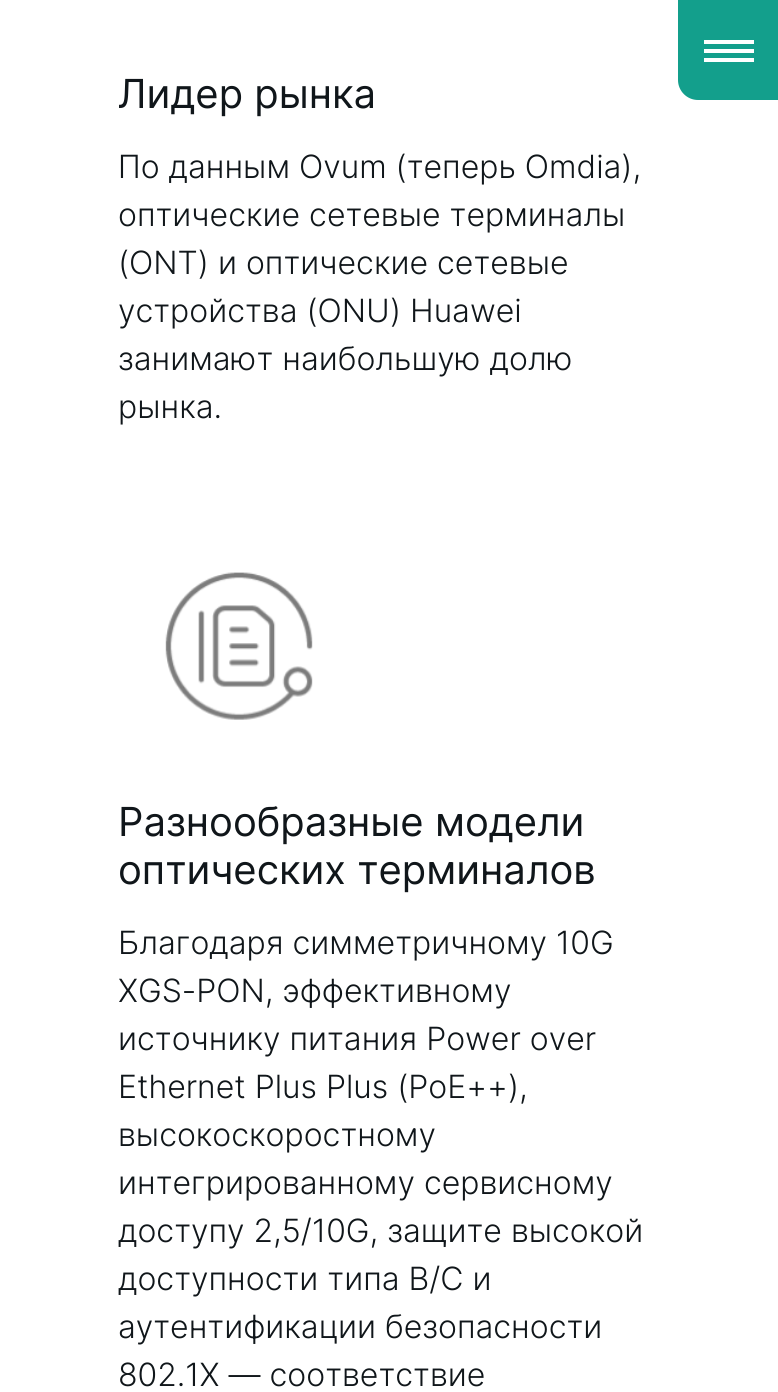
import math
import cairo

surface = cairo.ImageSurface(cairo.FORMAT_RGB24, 778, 1392)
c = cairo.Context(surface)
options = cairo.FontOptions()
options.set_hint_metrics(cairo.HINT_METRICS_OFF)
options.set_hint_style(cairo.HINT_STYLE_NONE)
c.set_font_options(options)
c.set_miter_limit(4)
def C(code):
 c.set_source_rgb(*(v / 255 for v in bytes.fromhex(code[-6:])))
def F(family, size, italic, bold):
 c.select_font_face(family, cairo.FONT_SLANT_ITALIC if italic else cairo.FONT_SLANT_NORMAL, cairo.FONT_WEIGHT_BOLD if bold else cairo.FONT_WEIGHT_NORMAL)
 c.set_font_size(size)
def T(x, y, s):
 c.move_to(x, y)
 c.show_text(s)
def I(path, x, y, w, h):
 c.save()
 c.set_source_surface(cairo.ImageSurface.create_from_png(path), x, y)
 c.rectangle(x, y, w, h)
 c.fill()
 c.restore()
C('ffffff')
c.paint()
C('139f8c')
c.new_path()
c.move_to(678,0)
c.line_to(778,0)
c.line_to(778,100)
c.line_to(698,100)
c.curve_to(687,100,678,91,678,80)
c.close_path()
c.fill()
C('ffffff')
c.new_path()
c.move_to(704,62)
c.line_to(754,62)
c.line_to(754,58)
c.line_to(704,58)
c.close_path()
c.move_to(704,40)
c.line_to(704,44)
c.line_to(754,44)
c.line_to(754,40)
c.close_path()
c.move_to(704,53)
c.line_to(754,53)
c.line_to(754,49)
c.line_to(704,49)
c.close_path()
c.fill()
F('Inter',40,0,0)
C('10161a')
T(118,108,'Лидер рынка')
F('Inter Light',32,0,0)
T(118,178,'По данным Ovum (теперь Omdia),')
T(118,226,'оптические сетевые терминалы')
T(118,274,'(ONT) и оптические сетевые')
T(118,322,'устройства (ONU) Huawei')
T(118,370,'занимают наибольшую долю')
T(118,418,'рынка.')
I('1.png',165,572,148,148)
F('Inter',40,0,0)
T(118,836,'Разнообразные модели')
T(118,884,'оптических терминалов')
F('Inter Light',32,0,0)
T(118,954,'Благодаря симметричному 10G')
T(118,1002,'XGS-PON, эффективному')
T(118,1050,'источнику питания Power over')
T(118,1098,'Ethernet Plus Plus (PoE++),')
T(118,1146,'высокоскоростному')
T(118,1194,'интегрированному сервисному')
T(118,1242,'доступу 2,5/10G, защите высокой')
T(118,1290,'доступности типа B/C и')
T(118,1338,'аутентификации безопасности')
T(118,1386,'802.1X — соответствие')
surface.write_to_png('o.png')
